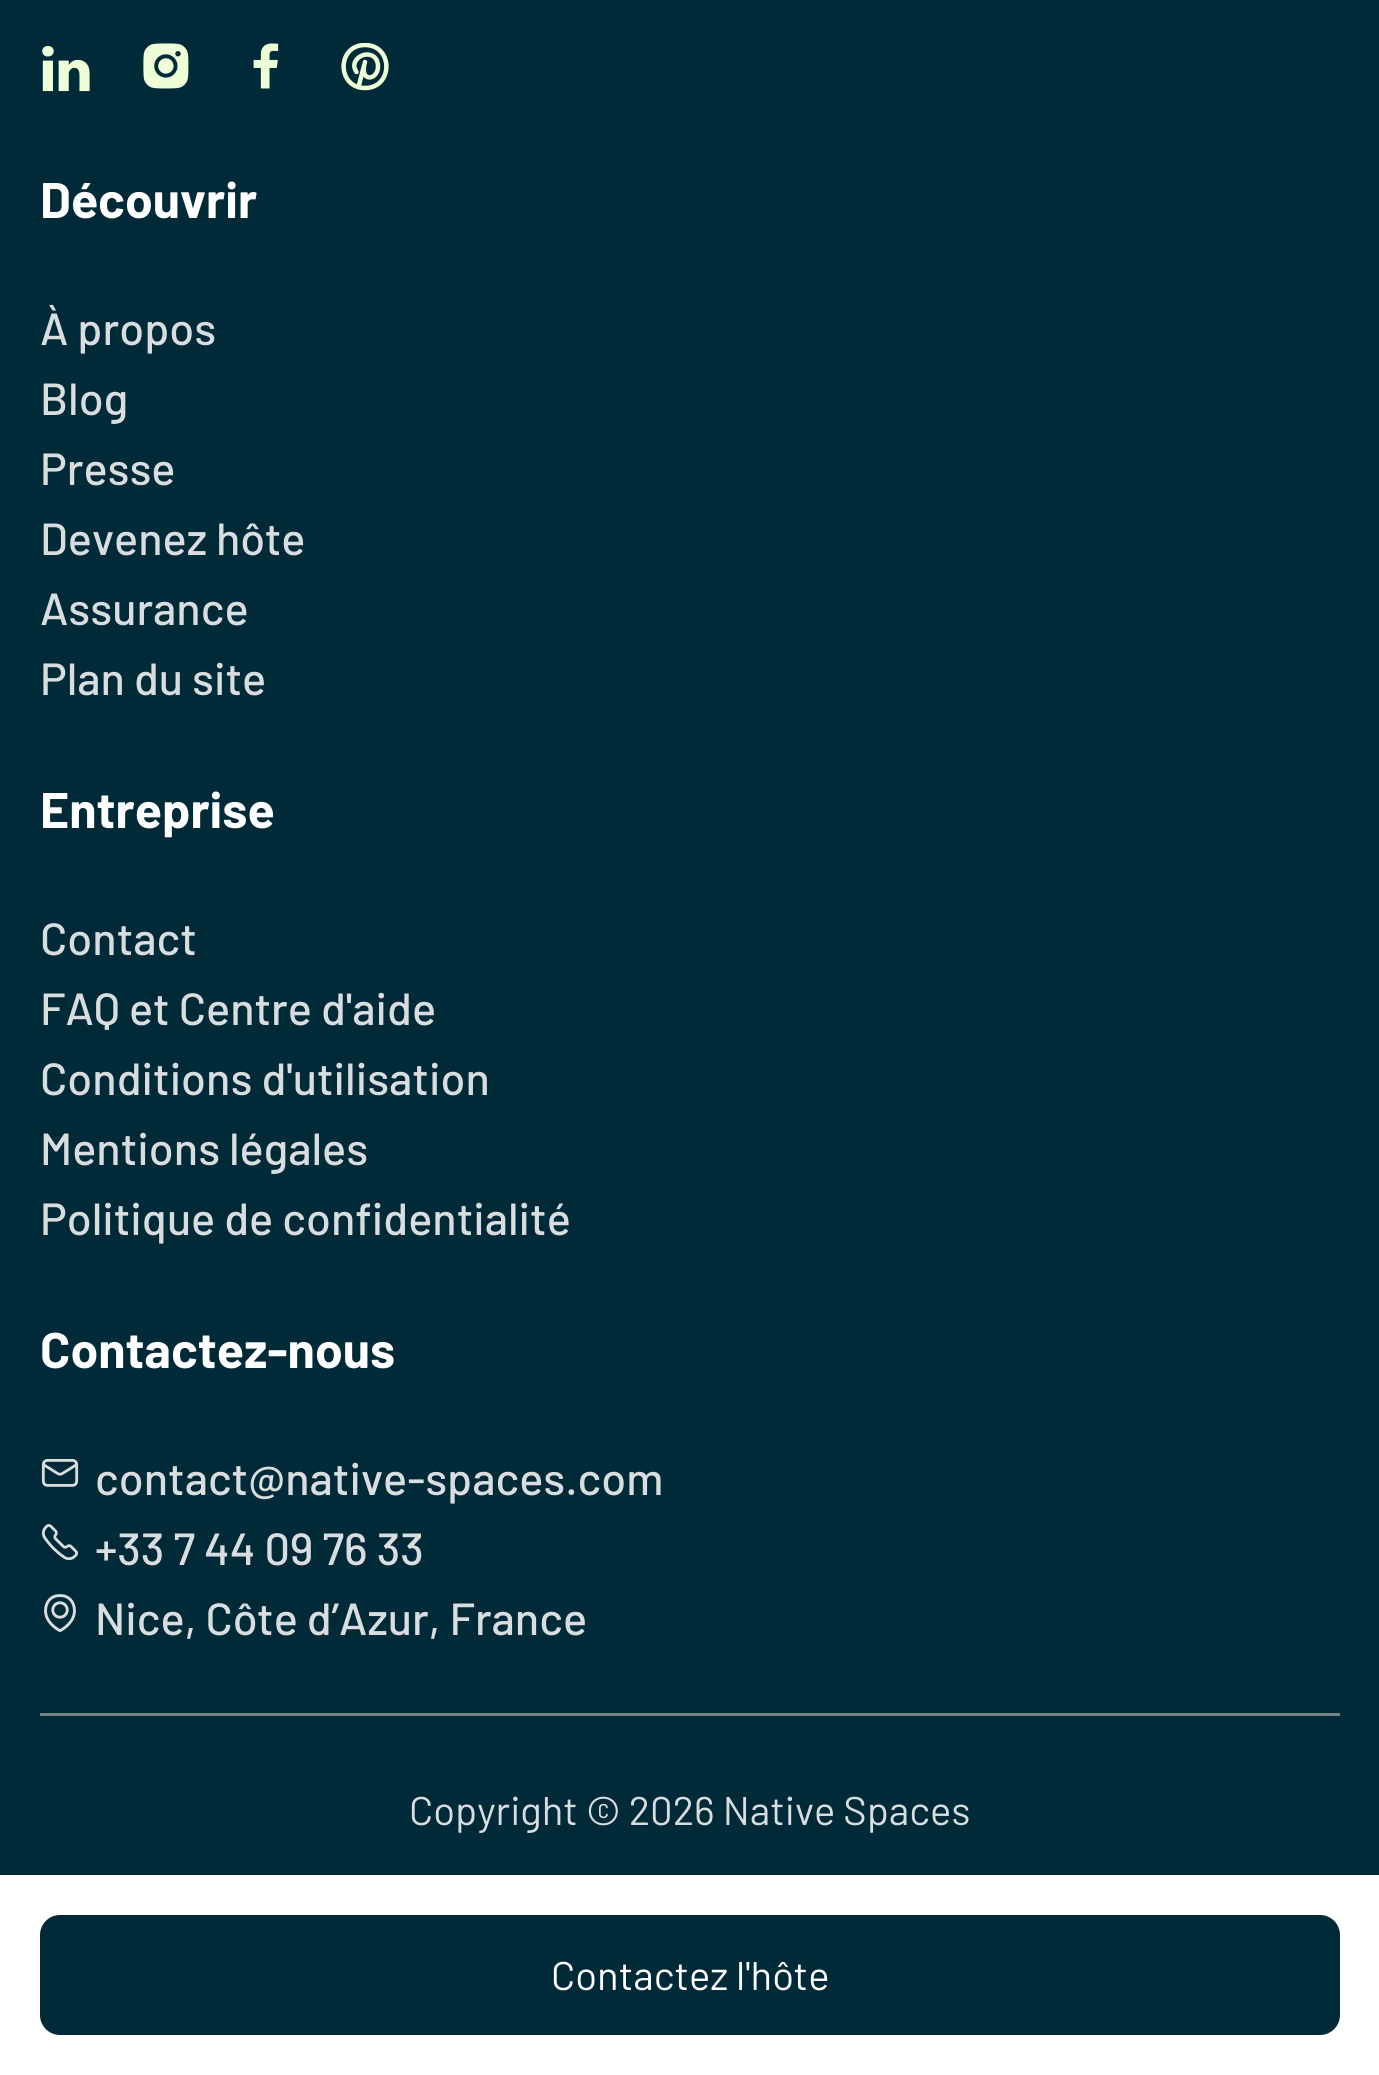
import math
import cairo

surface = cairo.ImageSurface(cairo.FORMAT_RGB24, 1379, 2075)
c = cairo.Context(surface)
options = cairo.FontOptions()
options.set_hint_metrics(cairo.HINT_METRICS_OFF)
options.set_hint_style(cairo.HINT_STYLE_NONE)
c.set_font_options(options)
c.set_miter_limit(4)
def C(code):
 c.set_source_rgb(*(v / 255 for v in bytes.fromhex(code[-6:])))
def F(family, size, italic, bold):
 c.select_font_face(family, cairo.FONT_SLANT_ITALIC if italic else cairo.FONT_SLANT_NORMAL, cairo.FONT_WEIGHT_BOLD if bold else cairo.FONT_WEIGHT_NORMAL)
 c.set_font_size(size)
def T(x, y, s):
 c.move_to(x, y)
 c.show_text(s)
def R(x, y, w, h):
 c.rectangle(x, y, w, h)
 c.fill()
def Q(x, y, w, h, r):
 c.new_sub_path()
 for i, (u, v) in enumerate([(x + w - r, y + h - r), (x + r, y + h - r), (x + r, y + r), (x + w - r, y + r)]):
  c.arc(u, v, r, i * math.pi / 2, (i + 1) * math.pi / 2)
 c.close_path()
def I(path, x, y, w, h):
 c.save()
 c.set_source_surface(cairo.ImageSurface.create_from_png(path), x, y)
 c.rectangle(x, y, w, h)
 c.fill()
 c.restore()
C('002a37')
c.paint()
I('1.png',42,46,48,46)
I('2.png',143,43,46,46)
I('3.png',253,43,26,46)
c.new_path()
c.move_to(356.5,72)
c.curve_to(347.5,59,368.5,48,376,59)
c.curve_to(377.5,61.5,378,64,378,66.5)
c.curve_to(378,79.5,361.5,82.5,364,66.5)
c.move_to(365,62)
c.line_to(358.5,87)
C('eeffd8')
c.set_line_width(4.5)
c.set_line_cap(cairo.LINE_CAP_ROUND)
c.set_line_join(cairo.LINE_JOIN_ROUND)
c.stroke()
c.save()
c.rectangle(340,43,50,50)
c.clip()
c.new_path()
c.move_to(365,88)
c.curve_to(393.5,88,393.5,45,365,45)
c.curve_to(336.5,45,336.5,88,365,88)
c.close_path()
c.stroke()
c.restore()
F('Barlow',50,0,1)
C('ffffff')
T(40,218,'Découvrir')
F('Barlow Medium',45,0,0)
C('d9dddf')
T(40,345,'À propos')
T(40,415,'Blog')
T(40,485,'Presse')
T(40,555,'Devenez hôte')
T(40,625,'Assurance')
T(40,695,'Plan du site')
F('Barlow',50,0,1)
C('ffffff')
T(40,828,'Entreprise')
F('Barlow Medium',45,0,0)
C('d9dddf')
T(40,955,'Contact')
T(40,1025,'FAQ et Centre d\'aide')
T(40,1095,'Conditions d\'utilisation')
T(40,1165,'Mentions légales')
T(40,1235,'Politique de confidentialité')
F('Barlow',50,0,1)
C('ffffff')
T(40,1368,'Contactez-nous')
I('4.png',41,1459,38,28)
F('Barlow Medium',45,0,0)
C('d9dddf')
T(95,1495,'contact@native-spaces.com')
I('5.png',41,1524,38,37)
T(95,1565,'+33 7 44 09 76 33')
I('6.png',44,1594,32,38)
T(95,1635,'Nice, Côte d’Azur, France')
C('738388')
R(40,1713,1300,3)
F('Barlow',40,0,0)
C('d9dddf')
T(409,1825,'Copyright © 2026 Native Spaces')
C('ffffff')
R(0,1875,1379,200)
C('002a37')
Q(40,1915,1300,120,20)
c.fill()
C('ffffff')
T(551,1990,'Contactez l\'hôte')
surface.write_to_png('o.png')
